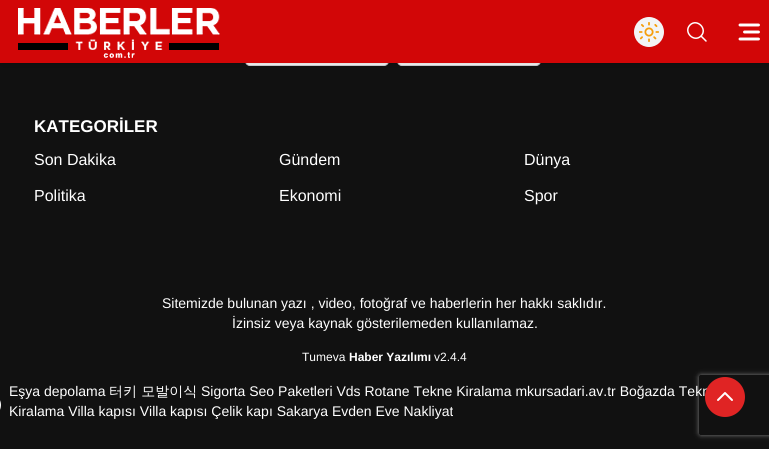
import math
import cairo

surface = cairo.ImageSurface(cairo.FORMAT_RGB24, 769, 449)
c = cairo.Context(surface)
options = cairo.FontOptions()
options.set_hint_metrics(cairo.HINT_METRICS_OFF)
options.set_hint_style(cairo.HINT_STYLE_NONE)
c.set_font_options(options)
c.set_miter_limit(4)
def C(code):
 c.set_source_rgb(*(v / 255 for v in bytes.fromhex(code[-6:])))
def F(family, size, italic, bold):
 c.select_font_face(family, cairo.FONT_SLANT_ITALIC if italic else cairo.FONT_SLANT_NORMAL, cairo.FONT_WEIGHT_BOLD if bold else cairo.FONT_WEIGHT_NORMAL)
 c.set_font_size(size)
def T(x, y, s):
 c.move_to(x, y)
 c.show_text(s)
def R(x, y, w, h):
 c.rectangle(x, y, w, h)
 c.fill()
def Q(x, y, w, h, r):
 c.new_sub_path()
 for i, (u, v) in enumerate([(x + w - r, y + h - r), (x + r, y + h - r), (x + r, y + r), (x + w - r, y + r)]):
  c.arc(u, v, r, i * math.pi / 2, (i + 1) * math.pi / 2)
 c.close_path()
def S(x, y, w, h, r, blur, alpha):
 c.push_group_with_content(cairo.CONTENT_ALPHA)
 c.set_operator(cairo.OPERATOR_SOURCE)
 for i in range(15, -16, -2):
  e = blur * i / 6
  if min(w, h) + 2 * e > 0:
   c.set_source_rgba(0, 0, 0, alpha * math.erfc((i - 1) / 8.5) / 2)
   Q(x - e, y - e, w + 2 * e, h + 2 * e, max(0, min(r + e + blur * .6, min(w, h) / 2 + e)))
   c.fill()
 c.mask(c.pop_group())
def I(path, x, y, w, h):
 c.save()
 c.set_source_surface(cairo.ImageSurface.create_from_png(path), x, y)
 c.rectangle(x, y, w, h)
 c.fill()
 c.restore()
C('111111')
c.paint()
C('ffffff')
Q(245.5,28.5,143,37,4.5)
c.fill_preserve()
C('d1d5db')
c.set_line_width(1)
c.stroke()
C('ffffff')
Q(397.5,28.5,143,37,4.5)
c.fill_preserve()
C('d1d5db')
c.stroke()
C('000000')
S(2,4,765,59,0,2,.1)
S(1,5,767,61,0,3,.1)
C('d20607')
R(0,0,769,63)
I('1.png',18,8,202,50)
C('f3f4f6')
c.arc(649,32,15,0,2 * math.pi)
c.fill()
I('2.png',639,22,20,20)
c.new_path()
c.move_to(706,41)
c.line_to(701,36)
c.move_to(701,36)
c.curve_to(708,29,697,18,690,25)
c.curve_to(683,32,694,43,701,36)
c.close_path()
C('ffffff')
c.set_line_width(1.5)
c.set_line_cap(cairo.LINE_CAP_ROUND)
c.set_line_join(cairo.LINE_JOIN_ROUND)
c.stroke()
c.new_path()
c.move_to(758.5,25)
c.line_to(740,25)
c.move_to(758.5,32)
c.line_to(744.5,32)
c.move_to(758.5,39)
c.line_to(740,39)
c.set_line_width(2.9)
c.stroke()
F('Liberation Sans',17,0,1)
T(34,132,'KATEGORİLER')
F('Liberation Sans',16,0,0)
T(34,165,'Son Dakika')
T(279,165,'Gündem')
T(524,165,'Dünya')
T(34,201,'Politika')
T(279,201,'Ekonomi')
T(524,201,'Spor')
F('Liberation Sans',14,0,0)
T(162,308,'Sitemizde bulunan yazı , video, fotoğraf ve haberlerin her hakkı saklıdır.')
T(232,328,'İzinsiz veya kaynak gösterilemeden kullanılamaz.')
F('Liberation Sans',12,0,0)
T(302,361,'Tumeva')
F('Liberation Sans',12,0,1)
T(349,361,'Haber Yazılımı')
F('Liberation Sans',12,0,0)
T(434,361,'v2.4.4')
F('Liberation Sans',14,0,0)
T(9,396,'Eşya depolama')
F('WenQuanYi Zen Hei Medium',14,0,0)
T(109,396,'터키 모발이식')
c.save()
c.set_fill_rule(cairo.FILL_RULE_EVEN_ODD)
c.new_path()
c.move_to(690,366)
c.line_to(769,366)
c.line_to(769,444)
c.line_to(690,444)
c.close_path()
c.move_to(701,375)
c.line_to(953,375)
c.curve_to(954,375,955,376,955,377)
c.line_to(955,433)
c.curve_to(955,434,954,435,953,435)
c.line_to(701,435)
c.curve_to(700,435,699,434,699,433)
c.line_to(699,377)
c.curve_to(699,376,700,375,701,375)
c.close_path()
c.clip()
C('808080')
S(699,375,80,60,2,2.5,1)
c.restore()
F('Liberation Sans',14,0,0)
T(201,396,'Sigorta Seo Paketleri Vds Rotane Tekne Kiralama mkursadari.av.tr Boğazda Tekn')
T(9,416,'Kiralama Villa kapısı Villa kapısı Çelik kapı Sakarya Evden Eve Nakliyat')
c.new_path()
c.move_to(-8.5,394)
c.curve_to(-3.5,394,1,399,1,405)
c.curve_to(1,411,-3.5,416,-8.5,416)
c.curve_to(-13.5,416,-18,411,-18,405)
c.curve_to(-18,399,-13.5,394,-8.5,394)
c.close_path()
c.fill()
C('e02424')
c.arc(725,397,20,0,2 * math.pi)
c.fill()
c.new_path()
c.move_to(718,400)
c.line_to(725,393)
c.line_to(732,400)
C('ffffff')
c.set_line_width(2)
c.stroke()
surface.write_to_png('o.png')
